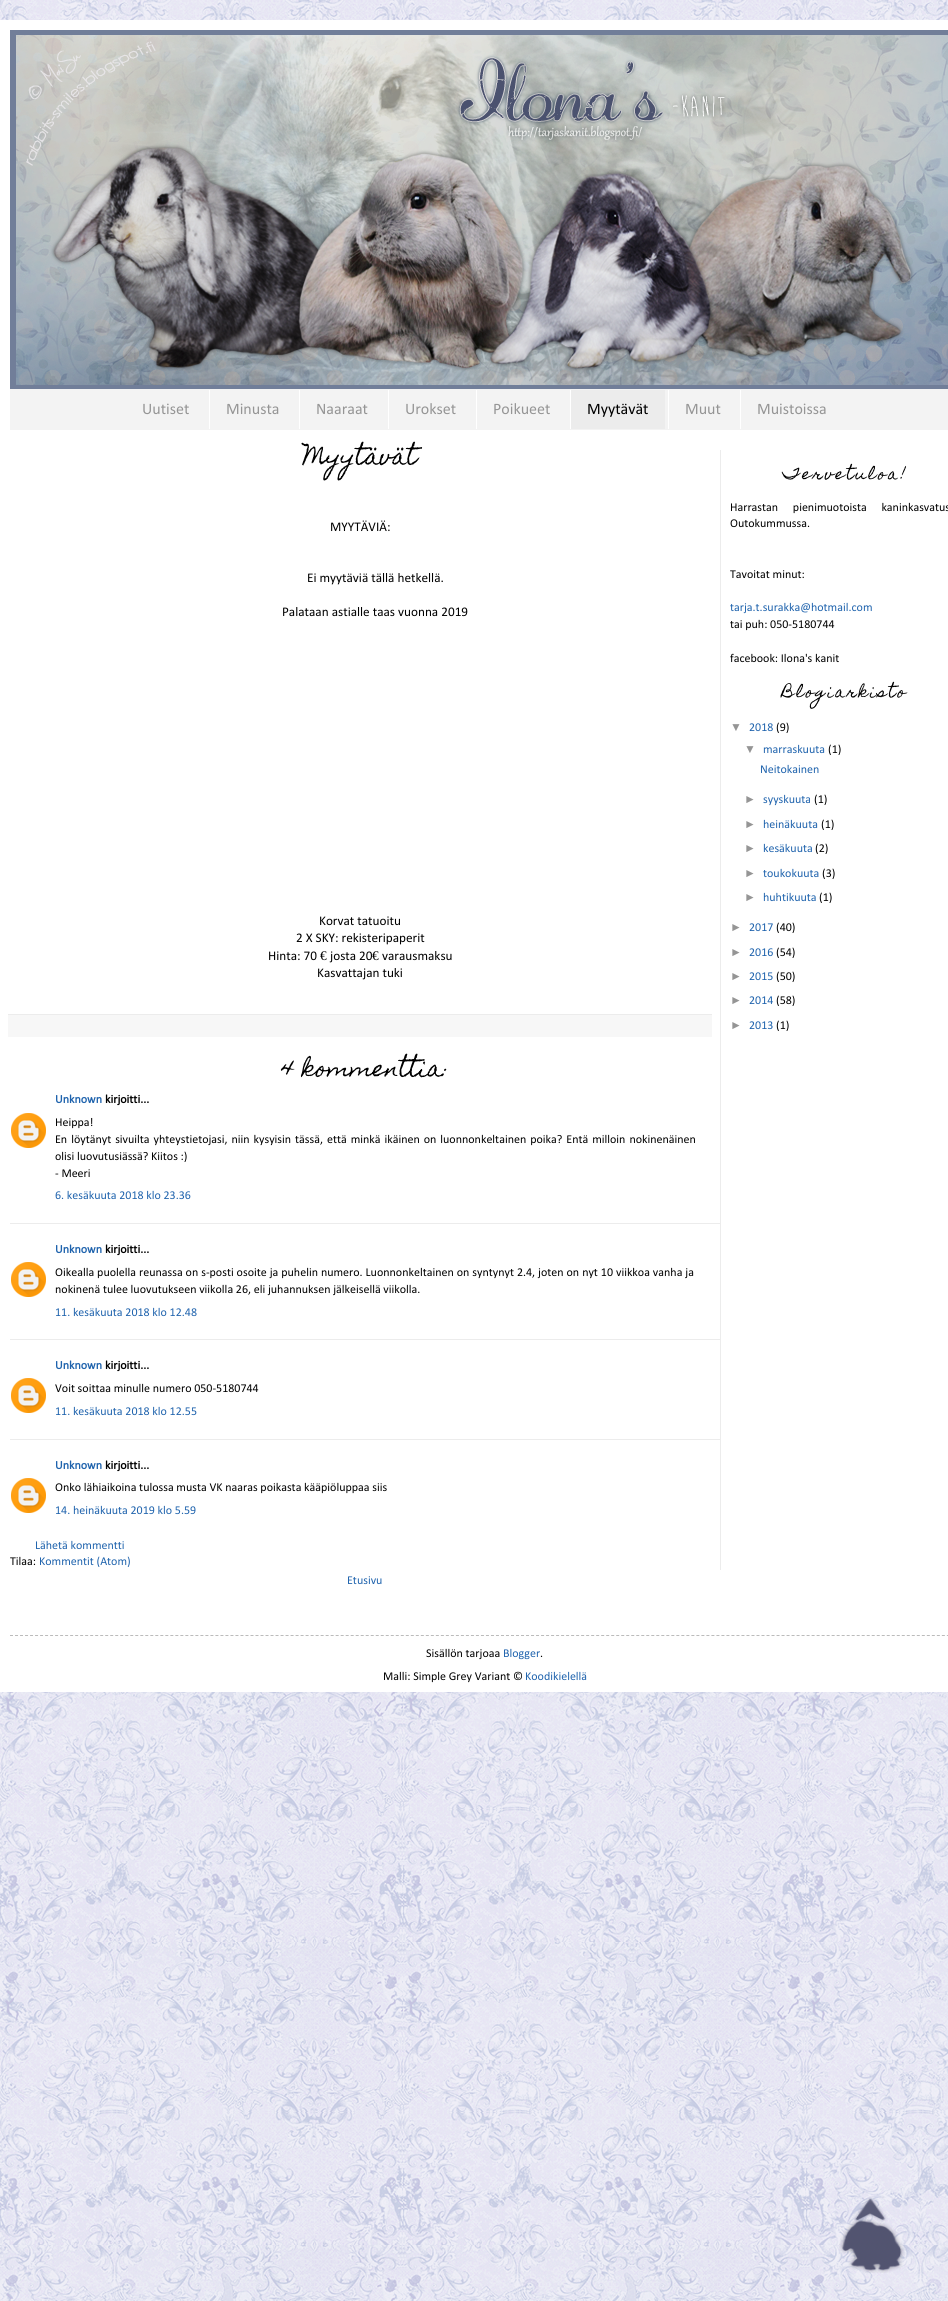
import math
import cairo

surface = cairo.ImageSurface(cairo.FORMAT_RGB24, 948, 2301)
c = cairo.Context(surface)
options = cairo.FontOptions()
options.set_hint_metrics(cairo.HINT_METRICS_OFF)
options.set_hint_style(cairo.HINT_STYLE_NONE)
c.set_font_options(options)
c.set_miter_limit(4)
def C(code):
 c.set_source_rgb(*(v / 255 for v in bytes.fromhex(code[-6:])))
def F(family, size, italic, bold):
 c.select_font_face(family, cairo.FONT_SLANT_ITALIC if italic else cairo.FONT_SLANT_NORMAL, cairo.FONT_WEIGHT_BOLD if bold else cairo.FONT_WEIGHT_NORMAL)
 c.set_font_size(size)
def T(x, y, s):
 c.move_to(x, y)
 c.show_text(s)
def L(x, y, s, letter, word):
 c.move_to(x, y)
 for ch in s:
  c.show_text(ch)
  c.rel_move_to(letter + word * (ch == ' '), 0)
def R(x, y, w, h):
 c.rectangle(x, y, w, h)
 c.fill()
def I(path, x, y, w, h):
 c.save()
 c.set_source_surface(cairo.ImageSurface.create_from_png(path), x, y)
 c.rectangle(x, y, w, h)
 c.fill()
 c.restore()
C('ffffff')
c.paint()
I('1.png',0,0,948,2301)
C('ffffff')
R(0,20,948,1672)
I('2.png',10,30,938,359)
C('f3f3f3')
R(10,389,938,41)
F('Calibri',16,0,0)
C('959595')
T(142,414,'Uutiset')
C('ffffff')
R(209,390,1,39)
C('959595')
T(226,414,'Minusta')
C('ffffff')
R(299,390,1,39)
C('959595')
T(316,414,'Naaraat')
C('ffffff')
R(388,390,1,39)
C('959595')
T(405,414,'Urokset')
C('ffffff')
R(476,390,1,39)
C('959595')
T(493,414,'Poikueet')
C('ececec')
R(571,390,94,39)
C('ffffff')
R(570,390,1,39)
C('000000')
T(587,414,'Myytävät')
C('ffffff')
R(668,390,1,39)
C('959595')
T(685,414,'Muut')
C('ffffff')
R(740,390,1,39)
C('959595')
T(757,414,'Muistoissa')
F('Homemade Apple',22,0,0)
C('000000')
T(303,464,'Myytävät')
F('Calibri',13.25,0,0)
T(330,531,'MYYTÄVIÄ:')
T(307,582,'Ei myytäviä tällä hetkellä.')
T(282,616,'Palataan astialle taas vuonna 2019')
T(319,925,'Korvat tatuoitu')
T(296,942,'2 X SKY: rekisteripaperit')
T(268,960,'Hinta: 70')
F('Liberation Serif',13.25,0,0)
T(320,960,'€')
F('Calibri',13.25,0,0)
T(330,960,'josta 20')
F('Liberation Serif',13.25,0,0)
T(372,960,'€')
F('Calibri',13.25,0,0)
T(382,960,'varausmaksu')
T(317,977,'Kasvattajan tuki')
C('f7f7f7')
R(8,1015,704,22)
C('ececec')
R(8,1014,704,1)
F('Homemade Apple',22,0,0)
C('000000')
T(281,1076,'4 kommenttia:')
F('Calibri',12,0,1)
C('1f63ad')
T(55,1103,'Unknown')
C('000000')
T(105,1103,'kirjoitti...')
I('3.png',11,1113,35,35)
F('Calibri',12,0,0)
T(55,1126,'Heippa!')
L(55,1143,'En löytänyt sivuilta yhteystietojasi, niin kysyisin tässä, että minkä ikäinen on luonnonkeltainen poika? Entä milloin nokinenäinen',0,1.25)
T(55,1160,'olisi luovutusiässä? Kiitos :)')
T(55,1177,'- Meeri')
C('1f63ad')
T(55,1199,'6. kesäkuuta 2018 klo 23.36')
C('ececec')
R(10,1223,710,1)
F('Calibri',12,0,1)
C('1f63ad')
T(55,1253,'Unknown')
C('000000')
T(105,1253,'kirjoitti...')
I('3.png',11,1262,35,35)
F('Calibri',12,0,0)
L(55,1276,'Oikealla puolella reunassa on s-posti osoite ja puhelin numero. Luonnonkeltainen on syntynyt 2.4, joten on nyt 10 viikkoa vanha ja',0,.25)
T(55,1293,'nokinenä tulee luovutukseen viikolla 26, eli juhannuksen jälkeisellä viikolla.')
C('1f63ad')
T(55,1316,'11. kesäkuuta 2018 klo 12.48')
C('ececec')
R(10,1339,710,1)
F('Calibri',12,0,1)
C('1f63ad')
T(55,1369,'Unknown')
C('000000')
T(105,1369,'kirjoitti...')
I('3.png',11,1378,35,35)
F('Calibri',12,0,0)
T(55,1392,'Voit soittaa minulle numero 050-5180744')
C('1f63ad')
T(55,1415,'11. kesäkuuta 2018 klo 12.55')
C('ececec')
R(10,1439,710,1)
F('Calibri',12,0,1)
C('1f63ad')
T(55,1469,'Unknown')
C('000000')
T(105,1469,'kirjoitti...')
I('3.png',11,1478,35,35)
F('Calibri',12,0,0)
T(55,1491,'Onko lähiaikoina tulossa musta VK naaras poikasta kääpiöluppaa siis')
C('1f63ad')
T(55,1514,'14. heinäkuuta 2019 klo 5.59')
T(35,1549,'Lähetä kommentti')
C('000000')
T(10,1565,'Tilaa:')
C('1f63ad')
T(39,1565,'Kommentit (Atom)')
T(347,1584,'Etusivu')
F('Homemade Apple',15,0,0)
C('000000')
L(783,479,'Tervetuloa!',2,0)
F('Calibri',12,0,0)
L(730,511,'Harrastan pienimuotoista kaninkasvatus',0,12)
T(730,527,'Outokummussa.')
T(730,578,'Tavoitat minut:')
C('1f63ad')
T(730,611,'tarja.t.surakka@hotmail.com')
C('000000')
T(730,628,'tai puh: 050-5180744')
T(730,662,'facebook: Ilona\'s kanit')
F('Homemade Apple',15,0,0)
L(782,697,'Blogiarkisto',2,0)
F('Liberation Sans',12,0,0)
C('959595')
T(730,731,'▼')
F('Calibri',12,0,0)
C('1f63ad')
T(749,731,'2018')
C('000000')
T(776,731,'(9)')
F('Liberation Sans',12,0,0)
C('959595')
T(744,753,'▼')
F('Calibri',12,0,0)
C('1f63ad')
T(763,753,'marraskuuta')
C('000000')
T(828,753,'(1)')
C('1f63ad')
T(760,773,'Neitokainen')
F('Liberation Sans',12,0,0)
C('959595')
T(744,803,'►')
F('Calibri',12,0,0)
C('1f63ad')
T(763,803,'syyskuuta')
C('000000')
T(814,803,'(1)')
F('Liberation Sans',12,0,0)
C('959595')
T(744,828,'►')
F('Calibri',12,0,0)
C('1f63ad')
T(763,828,'heinäkuuta')
C('000000')
T(821,828,'(1)')
F('Liberation Sans',12,0,0)
C('959595')
T(744,852,'►')
F('Calibri',12,0,0)
C('1f63ad')
T(763,852,'kesäkuuta')
C('000000')
T(815,852,'(2)')
F('Liberation Sans',12,0,0)
C('959595')
T(744,877,'►')
F('Calibri',12,0,0)
C('1f63ad')
T(763,877,'toukokuuta')
C('000000')
T(822,877,'(3)')
F('Liberation Sans',12,0,0)
C('959595')
T(744,901,'►')
F('Calibri',12,0,0)
C('1f63ad')
T(763,901,'huhtikuuta')
C('000000')
T(819,901,'(1)')
F('Liberation Sans',12,0,0)
C('959595')
T(730,931,'►')
F('Calibri',12,0,0)
C('1f63ad')
T(749,931,'2017')
C('000000')
T(776,931,'(40)')
F('Liberation Sans',12,0,0)
C('959595')
T(730,956,'►')
F('Calibri',12,0,0)
C('1f63ad')
T(749,956,'2016')
C('000000')
T(776,956,'(54)')
F('Liberation Sans',12,0,0)
C('959595')
T(730,980,'►')
F('Calibri',12,0,0)
C('1f63ad')
T(749,980,'2015')
C('000000')
T(776,980,'(50)')
F('Liberation Sans',12,0,0)
C('959595')
T(730,1004,'►')
F('Calibri',12,0,0)
C('1f63ad')
T(749,1004,'2014')
C('000000')
T(776,1004,'(58)')
F('Liberation Sans',12,0,0)
C('959595')
T(730,1029,'►')
F('Calibri',12,0,0)
C('1f63ad')
T(749,1029,'2013')
C('000000')
T(776,1029,'(1)')
I('4.png',839,2196,66,77)
C('ececec')
R(720,450,1,1120)
c.new_path()
c.move_to(10,1635.5)
c.line_to(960,1635.5)
C('bbbbbb')
c.set_line_width(1)
c.set_dash([3,2.01])
c.stroke()
C('000000')
T(426,1657,'Sisällön tarjoaa')
C('1f63ad')
T(503,1657,'Blogger')
C('000000')
T(540,1657,'.')
T(383,1680,'Malli: Simple Grey Variant ©')
C('1f63ad')
T(525,1680,'Koodikielellä')
surface.write_to_png('o.png')
